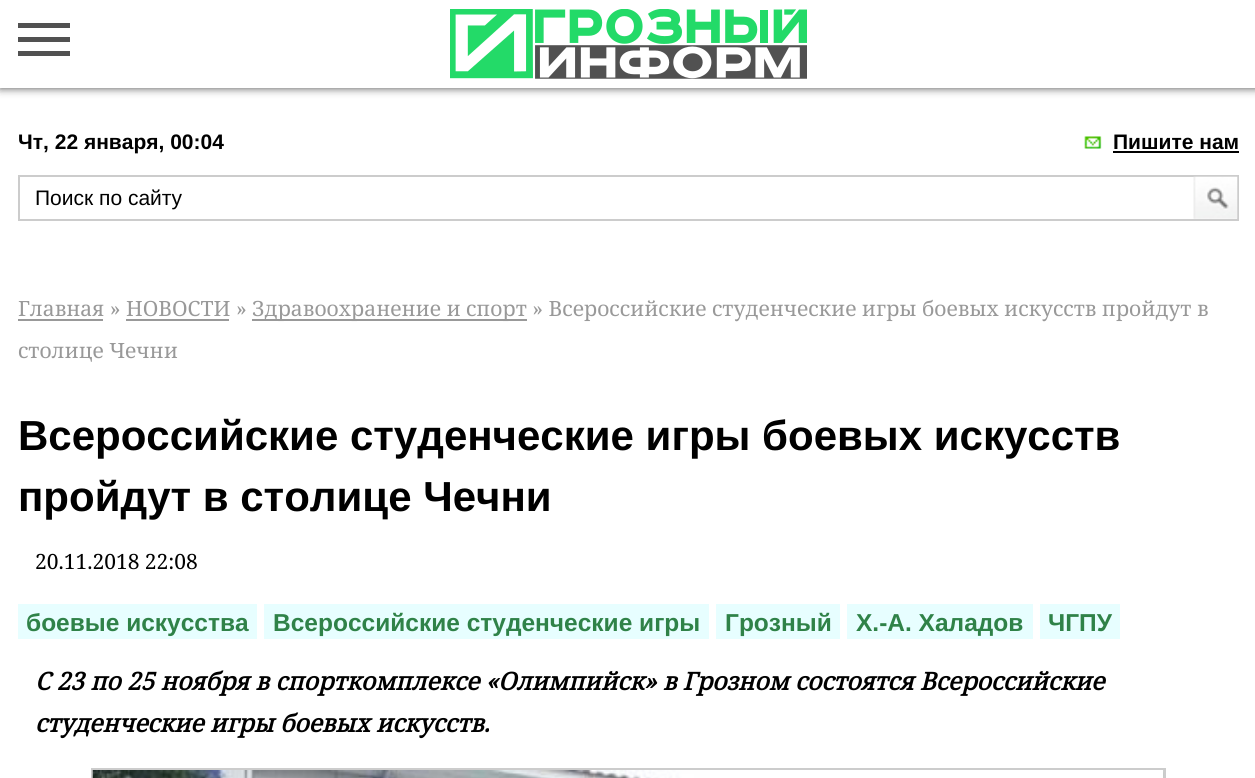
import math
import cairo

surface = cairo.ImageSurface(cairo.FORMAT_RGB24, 1255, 778)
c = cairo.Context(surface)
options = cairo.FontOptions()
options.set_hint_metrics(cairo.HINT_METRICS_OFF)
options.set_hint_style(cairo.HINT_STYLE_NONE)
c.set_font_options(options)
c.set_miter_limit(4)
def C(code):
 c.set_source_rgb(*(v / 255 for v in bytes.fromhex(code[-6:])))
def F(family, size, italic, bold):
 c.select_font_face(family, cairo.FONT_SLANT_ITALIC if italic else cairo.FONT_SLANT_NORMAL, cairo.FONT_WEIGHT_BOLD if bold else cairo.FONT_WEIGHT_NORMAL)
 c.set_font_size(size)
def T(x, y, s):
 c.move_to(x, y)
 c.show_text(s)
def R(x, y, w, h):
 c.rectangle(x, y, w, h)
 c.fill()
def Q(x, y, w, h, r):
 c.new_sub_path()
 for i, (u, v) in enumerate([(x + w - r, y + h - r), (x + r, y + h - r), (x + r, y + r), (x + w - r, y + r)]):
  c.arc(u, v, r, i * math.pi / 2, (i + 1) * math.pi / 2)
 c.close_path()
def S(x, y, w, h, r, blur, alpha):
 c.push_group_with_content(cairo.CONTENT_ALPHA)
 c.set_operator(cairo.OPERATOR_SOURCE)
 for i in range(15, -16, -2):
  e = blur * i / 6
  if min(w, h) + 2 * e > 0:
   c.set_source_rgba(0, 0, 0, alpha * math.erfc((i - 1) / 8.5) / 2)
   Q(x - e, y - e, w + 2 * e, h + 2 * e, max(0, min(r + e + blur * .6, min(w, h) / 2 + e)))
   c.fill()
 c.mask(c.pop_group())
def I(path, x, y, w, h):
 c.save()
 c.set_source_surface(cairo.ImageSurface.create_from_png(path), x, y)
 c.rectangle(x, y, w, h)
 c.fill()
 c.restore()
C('ffffff')
c.paint()
C('000000')
S(0,0,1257,88,0,4.5,.7)
C('ffffff')
R(0,0,1255,88)
C('515151')
R(18,37,52,5)
R(18,23,52,5)
R(18,51,52,5)
I('1.png',450,9,357,70)
F('Liberation Sans',21,0,1)
C('000000')
T(18,149,'Чт, 22 января, 00:04')
I('2.png',1084,136,18,13)
T(1113,149,'Пишите нам')
R(1113,151,126,2)
c.rectangle(19,176,1219,44)
C('cccccc')
c.stroke()
F('Liberation Sans',21,0,0)
C('000000')
T(35,205,'Поиск по сайту')
I('3.png',1193,176,45,43)
F('Noto Serif',21,0,0)
C('999999')
T(18,316,'Главная » НОВОСТИ »')
R(18,319,85,2)
R(252,319,275,2)
T(252,316,'Здравоохранение и спорт » Всероссийские студенческие игры боевых искусств пройдут в')
R(126,319,103,2)
T(18,358,'столице Чечни')
F('Liberation Sans',42,0,1)
C('000000')
T(18,450,'Всероссийские студенческие игры боевых искусств')
T(18,511,'пройдут в столице Чечни')
F('Noto Serif',21,0,0)
T(35,569,'20.11.2018 22:08')
C('e7feff')
R(18,604,239,35)
F('Liberation Sans',24.5,0,1)
C('2f8248')
T(26,631,'боевые искусства')
C('e7feff')
R(264,604,445,35)
C('2f8248')
T(273,631,'Всероссийские студенческие игры')
C('e7feff')
R(716,604,124,35)
C('2f8248')
T(725,631,'Грозный')
C('e7feff')
R(847,604,186,35)
C('2f8248')
T(856,631,'Х.-А. Халадов')
C('e7feff')
R(1040,604,80,35)
C('2f8248')
T(1048,631,'ЧГПУ')
F('Noto Serif',24.5,1,1)
C('000000')
T(35,690,'С 23 по 25 ноября в cпорткомплексе «Олимпийск» в Грозном состоятся Всероссийские')
T(35,732,'студенческие игры боевых искусств.')
I('5.png',1163,770,1,8)
c.rectangle(92,769,1073,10)
C('cccccc')
c.stroke()
I('4.png',92,770,1072,8)
surface.write_to_png('o.png')
